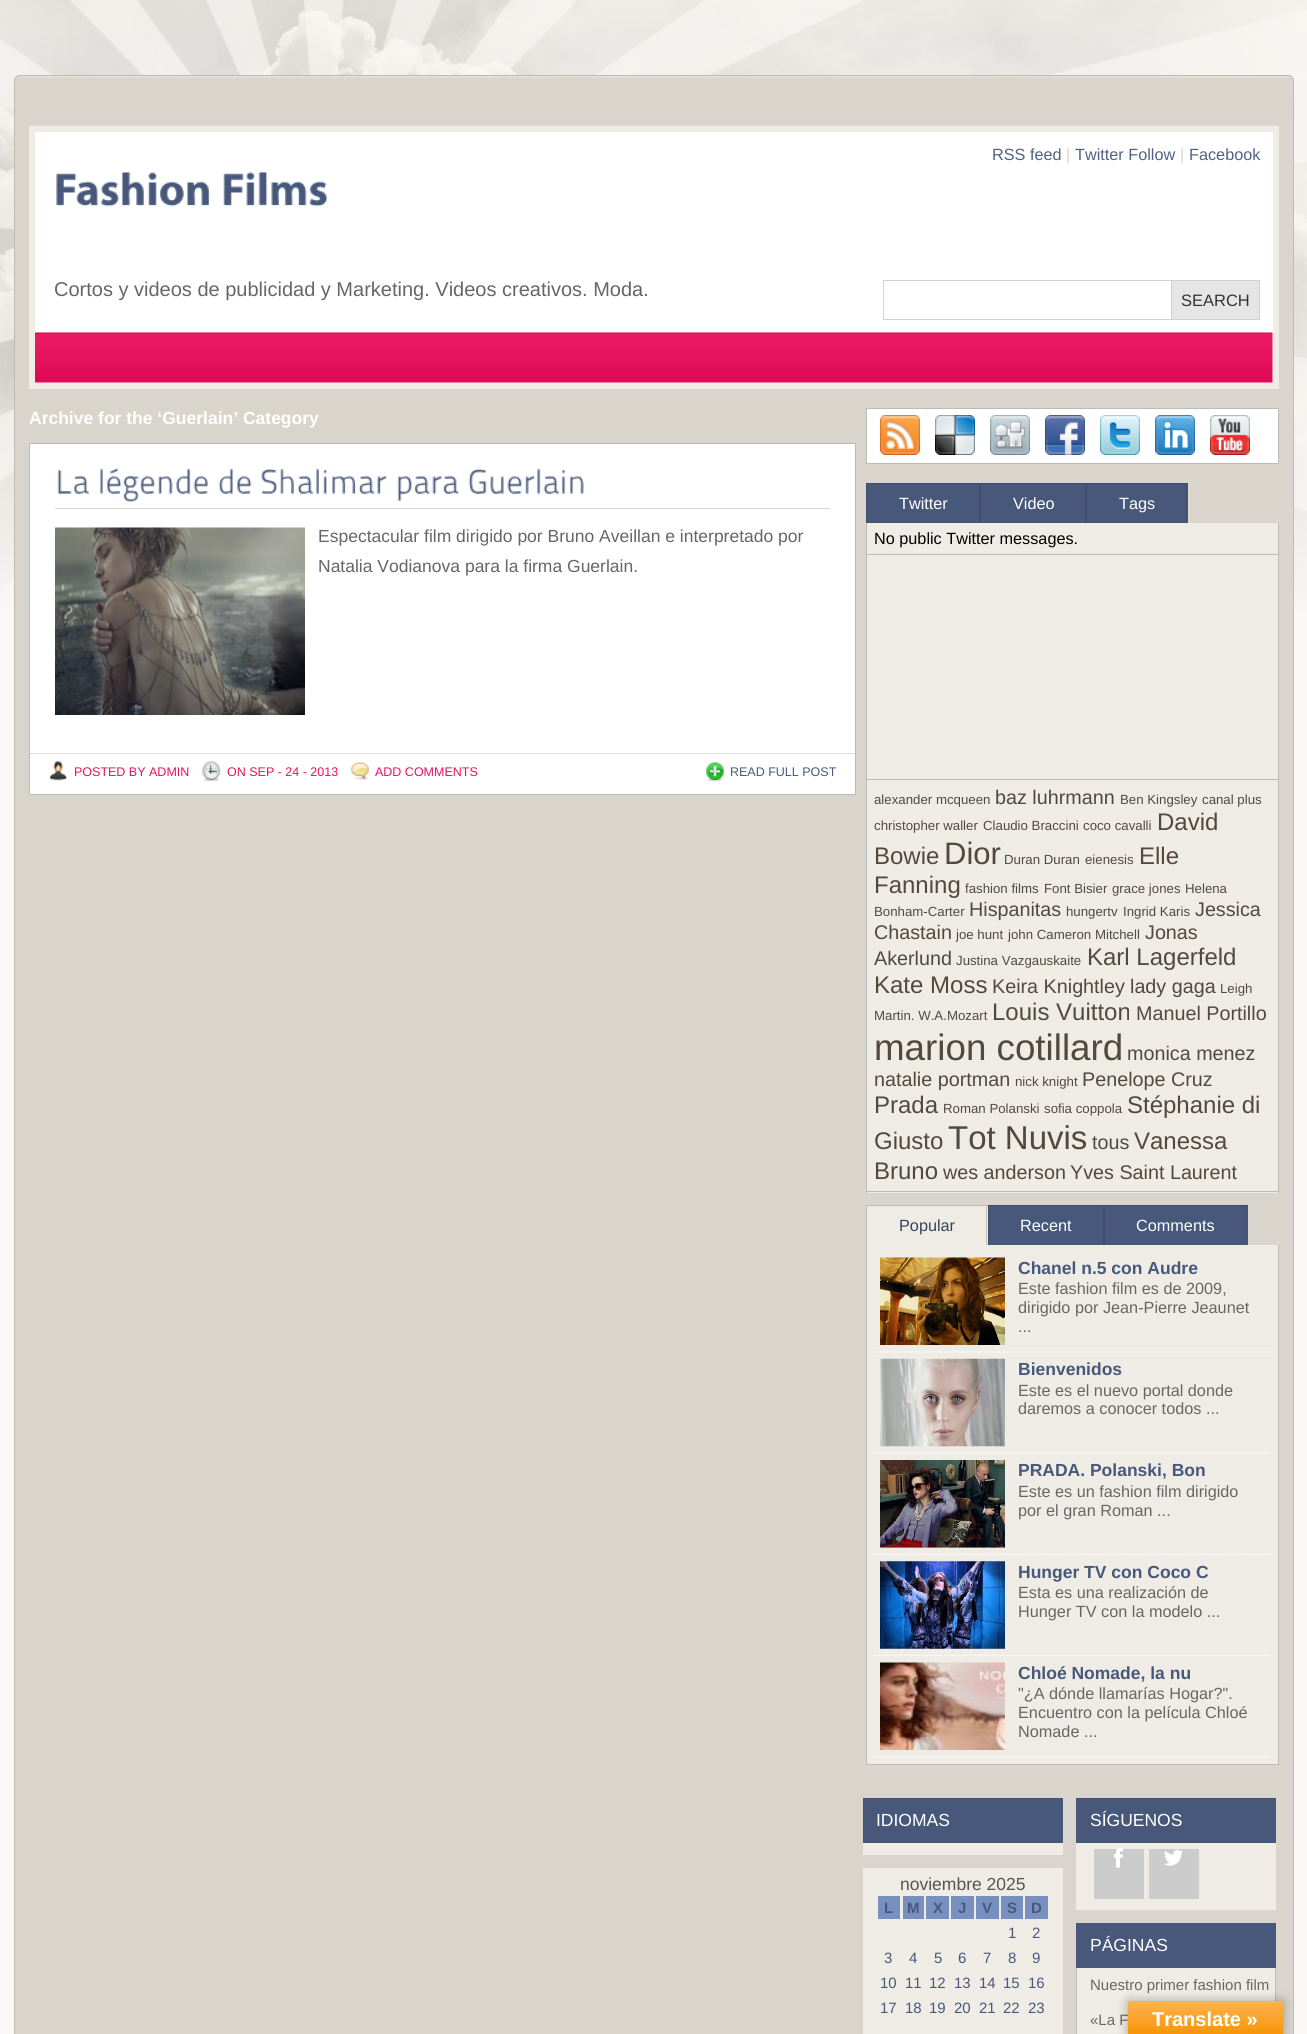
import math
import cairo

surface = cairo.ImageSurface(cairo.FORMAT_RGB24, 1307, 2034)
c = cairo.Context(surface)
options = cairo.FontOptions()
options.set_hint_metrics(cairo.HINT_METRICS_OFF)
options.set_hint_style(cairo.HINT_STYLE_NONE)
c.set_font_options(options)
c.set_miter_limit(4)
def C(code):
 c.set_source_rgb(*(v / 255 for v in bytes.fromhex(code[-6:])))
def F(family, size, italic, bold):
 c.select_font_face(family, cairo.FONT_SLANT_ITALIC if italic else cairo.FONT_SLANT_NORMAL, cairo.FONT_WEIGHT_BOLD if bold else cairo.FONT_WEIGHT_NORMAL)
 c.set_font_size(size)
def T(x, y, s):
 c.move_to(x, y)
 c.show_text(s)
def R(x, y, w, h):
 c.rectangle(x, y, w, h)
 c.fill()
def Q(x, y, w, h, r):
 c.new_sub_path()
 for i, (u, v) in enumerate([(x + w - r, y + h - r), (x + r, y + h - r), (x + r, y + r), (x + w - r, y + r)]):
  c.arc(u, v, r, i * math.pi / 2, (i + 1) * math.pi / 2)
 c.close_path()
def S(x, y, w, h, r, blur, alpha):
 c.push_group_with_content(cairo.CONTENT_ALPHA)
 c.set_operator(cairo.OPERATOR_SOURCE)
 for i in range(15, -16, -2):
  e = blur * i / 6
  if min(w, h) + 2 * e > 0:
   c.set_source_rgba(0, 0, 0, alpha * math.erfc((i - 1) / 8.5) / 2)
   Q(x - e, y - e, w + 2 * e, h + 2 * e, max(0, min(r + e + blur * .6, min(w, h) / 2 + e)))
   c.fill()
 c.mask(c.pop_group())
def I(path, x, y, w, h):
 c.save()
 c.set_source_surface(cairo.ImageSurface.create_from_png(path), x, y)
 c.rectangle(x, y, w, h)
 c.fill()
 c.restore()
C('f9f8f4')
c.paint()
I('1.png',0,0,1307,609)
C('d9d5cd')
Q(14,75,1280,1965,6)
c.fill()
I('2.png',14,76,1278,4)
Q(14.5,75.5,1279,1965,5.5)
C('bfbbb3')
c.set_line_width(1)
c.stroke()
C('ffffff')
c.rectangle(32,129,1244,257)
c.fill_preserve()
C('efece5')
c.set_line_width(6)
c.stroke()
F('Liberation Sans',16.25,0,0)
C('516284')
T(992,160,'RSS feed')
C('d9d5cd')
T(1066,160,'|')
C('516284')
T(1075,160,'Twitter Follow')
C('d9d5cd')
T(1180,160,'|')
C('516284')
T(1189,160,'Facebook')
I('3.png',56,172,154,35)
I('4.png',223,171,105,36)
F('Liberation Sans',20,0,0)
C('666666')
T(54,296,'Cortos y videos de publicidad y Marketing. Videos creativos. Moda.')
c.rectangle(883.5,280.5,376,39)
C('d1d1d1')
c.set_line_width(1)
c.stroke()
C('e5e5e5')
R(1172,281,87,38)
C('d1d1d1')
R(1171,281,1,38)
F('Liberation Sans',16.5,0,0)
C('333333')
T(1181,306,'SEARCH')
I('5.png',35,332,1238,51)
F('Liberation Sans',17.5,0,1)
C('ffffff')
T(29,424,'Archive for the ‘Guerlain’ Category')
c.rectangle(29.5,443.5,826,351)
c.fill_preserve()
C('bdbbb6')
c.stroke()
C('d9d5cd')
R(55,508,775,1)
I('6.png',57,469,32,25)
I('7.png',99,468,109,34)
I('8.png',218,468,34,26)
I('9.png',261,468,126,26)
I('10.png',397,476,62,26)
I('11.png',468,468,116,26)
I('12.png',55,527,250,188)
F('Liberation Sans',17.5,0,0)
C('666666')
T(318,542,'Espectacular film dirigido por Bruno Aveillan e interpretado por')
T(318,572,'Natalia Vodianova para la firma Guerlain.')
C('dddddd')
R(30,753,825,1)
I('13.png',49,761,18,20)
F('Liberation Sans',12.5,0,0)
C('e6135d')
T(74,776,'POSTED BY ADMIN')
I('14.png',202,761,19,21)
T(227,776,'ON SEP - 24 - 2013')
I('15.png',351,762,18,18)
T(375,776,'ADD COMMENTS')
I('16.png',706,762,18,20)
C('47587a')
T(730,776,'READ FULL POST')
C('ffffff')
c.rectangle(866.5,408.5,412,55)
c.fill_preserve()
C('bdbbb6')
c.stroke()
I('17.png',880,415,40,40)
I('18.png',935,415,40,40)
I('19.png',990,415,40,40)
I('20.png',1045,415,40,40)
I('21.png',1100,415,40,40)
I('22.png',1155,415,40,40)
I('23.png',1210,415,40,40)
C('efece5')
R(867,523,411,670)
C('47587a')
R(867,484,112,39)
C('3f4e6e')
R(866,483,322,1)
R(979,483,2,40)
R(866,483,1,40)
F('Liberation Sans',16.25,0,0)
C('ffffff')
T(899,509,'Twitter')
C('47587a')
R(981,484,104,39)
C('3f4e6e')
R(1085,483,2,40)
C('ffffff')
T(1013,509,'Video')
C('47587a')
R(1087,484,101,39)
C('3f4e6e')
R(1186,483,1,40)
C('ffffff')
T(1119,509,'Tags')
C('bdbbb6')
R(1278,523,1,670)
R(866,554,413,1)
R(866,523,1,32)
C('000000')
T(874,544,'No public Twitter messages.')
C('bdbbb6')
R(866,779,413,1)
R(866,555,1,225)
R(866,1191,413,1)
R(866,780,1,413)
F('Liberation Sans',13.25,0,0)
C('52483e')
T(874,804,'alexander mcqueen')
F('Liberation Sans',19.75,0,0)
T(995,804,'baz luhrmann')
F('Liberation Sans',13.25,0,0)
T(1120,804,'Ben Kingsley')
T(1202,804,'canal plus')
T(874,830,'christopher waller')
T(983,830,'Claudio Braccini')
T(1083,830,'coco cavalli')
F('Liberation Sans',24,0,0)
T(1157,830,'David')
T(874,864,'Bowie')
F('Liberation Sans',31,0,0)
T(944,864,'Dior')
F('Liberation Sans',13.25,0,0)
T(1004,864,'Duran Duran')
T(1085,864,'eienesis')
F('Liberation Sans',24,0,0)
T(1139,864,'Elle')
T(874,893,'Fanning')
F('Liberation Sans',13.25,0,0)
T(965,893,'fashion films')
T(1044,893,'Font Bisier')
T(1112,893,'grace jones')
T(1185,893,'Helena')
T(874,916,'Bonham-Carter')
F('Liberation Sans',19.75,0,0)
T(969,916,'Hispanitas')
F('Liberation Sans',13.25,0,0)
T(1066,916,'hungertv')
T(1123,916,'Ingrid Karis')
F('Liberation Sans',19.75,0,0)
T(1195,916,'Jessica')
T(874,939,'Chastain')
F('Liberation Sans',13.25,0,0)
T(956,939,'joe hunt')
T(1008,939,'john Cameron Mitchell')
F('Liberation Sans',19.75,0,0)
T(1145,939,'Jonas')
T(874,965,'Akerlund')
F('Liberation Sans',13.25,0,0)
T(956,965,'Justina Vazgauskaite')
F('Liberation Sans',24,0,0)
T(1087,965,'Karl Lagerfeld')
T(874,993,'Kate Moss')
F('Liberation Sans',19.75,0,0)
T(992,993,'Keira Knightley')
T(1130,993,'lady gaga')
F('Liberation Sans',13.25,0,0)
T(1220,993,'Leigh')
T(874,1020,'Martin. W.A.Mozart')
F('Liberation Sans',24,0,0)
T(992,1020,'Louis Vuitton')
F('Liberation Sans',19.75,0,0)
T(1136,1020,'Manuel Portillo')
F('Liberation Sans',36.75,0,0)
T(874,1060,'marion cotillard')
F('Liberation Sans',19.75,0,0)
T(1127,1060,'monica menez')
T(874,1086,'natalie portman')
F('Liberation Sans',13.25,0,0)
T(1015,1086,'nick knight')
F('Liberation Sans',19.75,0,0)
T(1082,1086,'Penelope Cruz')
F('Liberation Sans',24,0,0)
T(874,1113,'Prada')
F('Liberation Sans',13.25,0,0)
T(943,1113,'Roman Polanski')
T(1044,1113,'sofia coppola')
F('Liberation Sans',24,0,0)
T(1127,1113,'Stéphanie di')
T(874,1149,'Giusto')
F('Liberation Sans',33,0,0)
T(948,1149,'Tot Nuvis')
F('Liberation Sans',19.75,0,0)
T(1092,1149,'tous')
F('Liberation Sans',24,0,0)
T(1134,1149,'Vanessa')
T(874,1179,'Bruno')
F('Liberation Sans',19.75,0,0)
T(943,1179,'wes anderson')
T(1070,1179,'Yves Saint Laurent')
C('efece5')
R(867,1245,411,519)
R(867,1206,121,39)
C('bdbbb6')
R(866,1205,122,1)
R(986,1205,1,40)
R(866,1205,1,40)
F('Liberation Sans',16.25,0,0)
C('35445f')
T(899,1231,'Popular')
C('47587a')
R(989,1206,114,39)
C('3f4e6e')
R(988,1205,260,1)
R(1103,1205,2,40)
R(988,1205,1,40)
C('ffffff')
T(1020,1231,'Recent')
C('47587a')
R(1105,1206,143,39)
C('3f4e6e')
R(1246,1205,1,40)
C('ffffff')
T(1136,1231,'Comments')
C('bdbbb6')
R(1278,1245,1,520)
R(866,1764,413,1)
R(866,1245,1,520)
c.new_path()
c.move_to(874,1352)
c.line_to(1271,1352)
C('ffffff')
c.set_line_width(1.2)
c.set_dash([1.25,1.25])
c.stroke()
I('24.png',880,1257,125,88)
F('Liberation Sans',17.5,0,1)
C('47587a')
T(1018,1274,'Chanel n.5 con Audre')
F('Liberation Sans',16.25,0,0)
C('666666')
T(1018,1294,'Este fashion film es de 2009,')
T(1018,1313,'dirigido por Jean-Pierre Jeaunet')
T(1018,1332,'...')
c.new_path()
c.move_to(874,1453)
c.line_to(1271,1453)
C('ffffff')
c.stroke()
I('25.png',880,1358,125,89)
F('Liberation Sans',17.5,0,1)
C('47587a')
T(1018,1375,'Bienvenidos')
F('Liberation Sans',16.25,0,0)
C('666666')
T(1018,1396,'Este es el nuevo portal donde')
T(1018,1414,'daremos a conocer todos ...')
c.new_path()
c.move_to(874,1554.5)
c.line_to(1271,1554.5)
C('ffffff')
c.stroke()
C('cccccc')
R(880,1547,125,1)
I('26.png',880,1460,125,88)
F('Liberation Sans',17.5,0,1)
C('47587a')
T(1018,1476,'PRADA. Polanski, Bon')
F('Liberation Sans',16.25,0,0)
C('666666')
T(1018,1497,'Este es un fashion film dirigido')
T(1018,1516,'por el gran Roman ...')
c.new_path()
c.move_to(874,1655.5)
c.line_to(1271,1655.5)
C('ffffff')
c.stroke()
I('27.png',880,1561,125,88)
F('Liberation Sans',17.5,0,1)
C('47587a')
T(1018,1578,'Hunger TV con Coco C')
F('Liberation Sans',16.25,0,0)
C('666666')
T(1018,1598,'Esta es una realización de')
T(1018,1617,'Hunger TV con la modelo ...')
c.new_path()
c.move_to(874,1757)
c.line_to(1271,1757)
C('ffffff')
c.stroke()
I('28.png',880,1662,125,88)
F('Liberation Sans',17.5,0,1)
C('47587a')
T(1018,1679,'Chloé Nomade, la nu')
F('Liberation Sans',16.25,0,0)
C('666666')
T(1018,1699,'"¿A dónde llamarías Hogar?".')
T(1018,1718,'Encuentro con la película Chloé')
T(1018,1737,'Nomade ...')
C('efece5')
R(863,1843,200,12)
C('47587a')
R(864,1799,199,44)
C('445472')
R(863,1798,200,1)
R(1061,1798,1,45)
R(863,1798,1,45)
F('Liberation Sans',17.5,0,0)
C('ffffff')
T(876,1826,'IDIOMAS')
C('efece5')
R(863,1868,200,166)
C('555555')
T(900,1890,'noviembre 2025')
C('7790bf')
R(878,1896,22,23)
F('Liberation Sans',15,0,1)
C('47587a')
T(884,1913,'L')
C('7790bf')
R(903,1896,21,23)
C('47587a')
T(907,1913,'M')
C('7790bf')
R(926,1896,23,23)
C('47587a')
T(933,1913,'X')
C('7790bf')
R(951,1896,23,23)
C('47587a')
T(958,1913,'J')
C('7790bf')
R(976,1896,23,23)
C('47587a')
T(982,1913,'V')
C('7790bf')
R(1001,1896,22,23)
C('47587a')
T(1007,1913,'S')
C('7790bf')
R(1025,1896,23,23)
C('47587a')
T(1031,1913,'D')
F('Liberation Sans',15,0,0)
T(1008,1938,'1')
T(1032,1938,'2')
T(884,1963,'3')
T(909,1963,'4')
T(934,1963,'5')
T(958,1963,'6')
T(983,1963,'7')
T(1008,1963,'8')
T(1032,1963,'9')
T(880,1988,'10')
T(905,1988,'11')
T(929,1988,'12')
T(954,1988,'13')
T(979,1988,'14')
T(1003,1988,'15')
T(1028,1988,'16')
T(880,2013,'17')
T(905,2013,'18')
T(929,2013,'19')
T(954,2013,'20')
T(979,2013,'21')
T(1003,2013,'22')
T(1028,2013,'23')
C('efece5')
R(1076,1843,200,67)
C('47587a')
R(1077,1799,198,44)
C('445472')
R(1076,1798,200,1)
R(1275,1798,1,45)
R(1076,1798,1,45)
F('Liberation Sans',17.5,0,0)
C('ffffff')
T(1090,1826,'SÍGUENOS')
C('cccccc')
R(1094,1849,50,50)
I('29.png',1114,1848,9,20)
R(1149,1849,50,50)
I('30.png',1164,1849,19,17)
C('efece5')
R(1077,1968,198,66)
C('47587a')
R(1077,1924,198,44)
C('445472')
R(1076,1923,200,1)
R(1275,1923,1,45)
R(1076,1923,1,45)
C('ffffff')
T(1090,1951,'PÁGINAS')
C('bdbbb6')
R(1275,1968,1,33)
R(1076,1968,1,66)
F('Liberation Sans',15,0,0)
C('666666')
T(1090,1990,'Nuestro primer fashion film')
T(1090,2025,'«La F')
C('000000')
S(1128,2001,155,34,0,5.5,.3)
gradient = cairo.LinearGradient(1205,2001,1205,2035)
gradient.add_color_stop_rgba(0,0.984,0.706,0.314,1)
gradient.add_color_stop_rgba(1,0.973,0.58,0.024,1)
c.set_source(gradient)
R(1128,2001,155,33)
F('Liberation Sans',20,0,1)
C('ffffff')
T(1152,2026,'Translate »')
surface.write_to_png('o.png')
